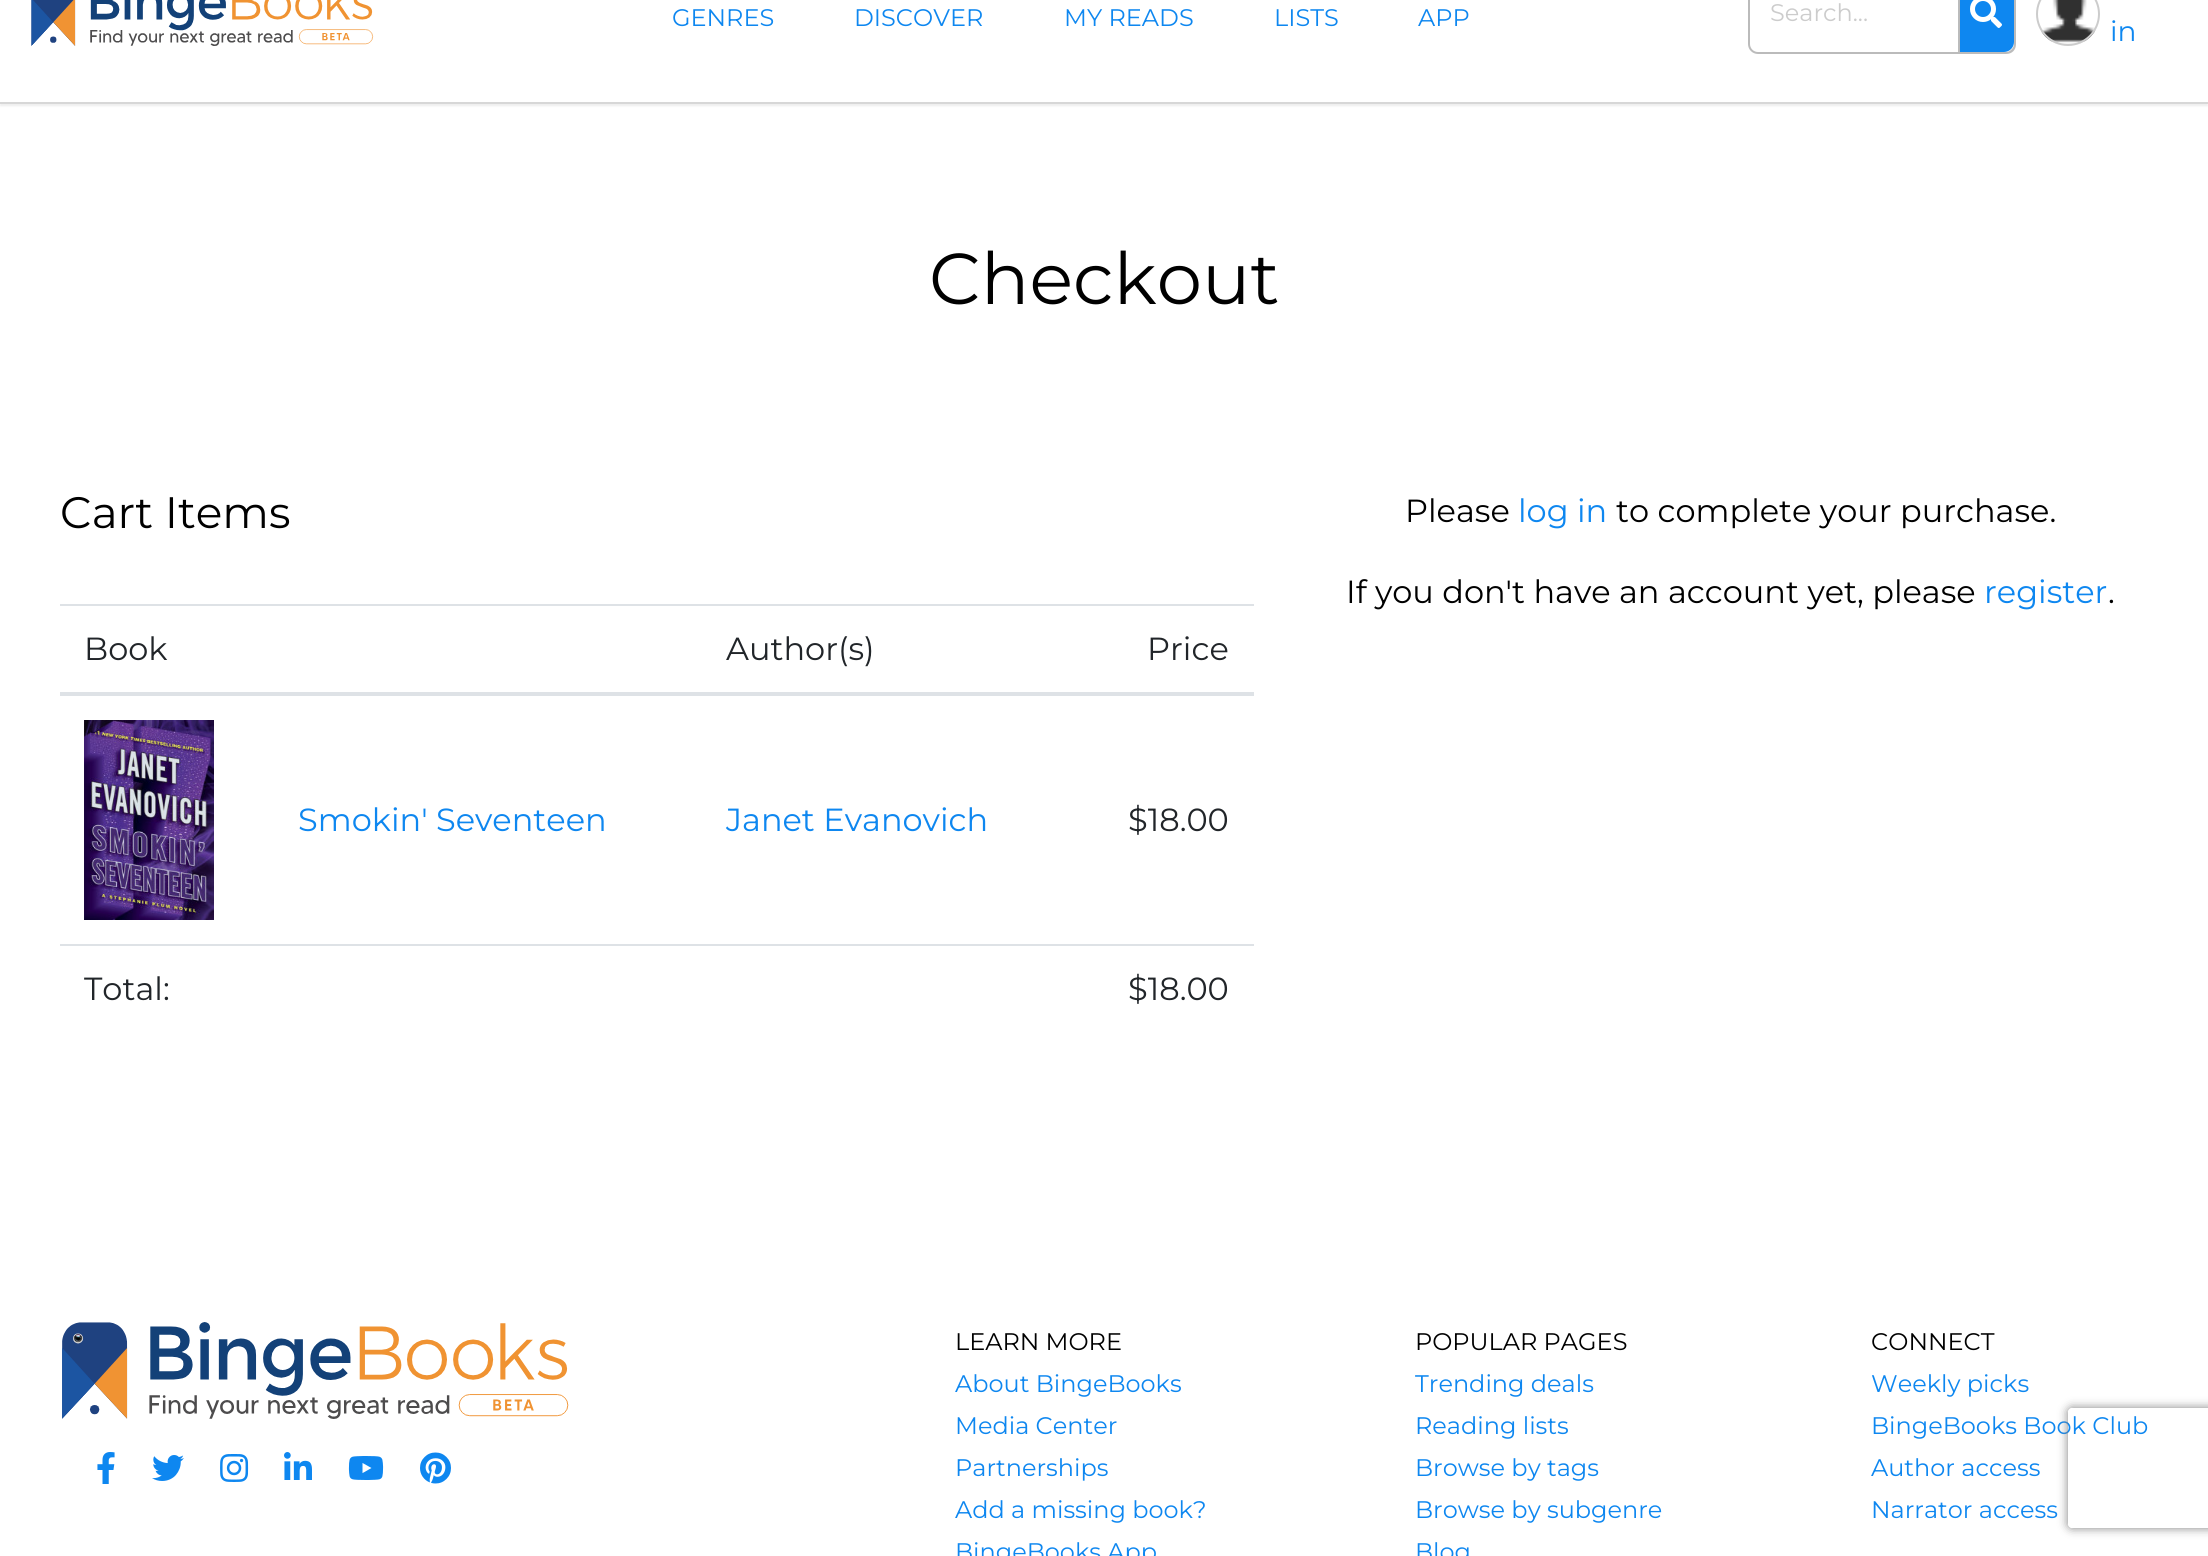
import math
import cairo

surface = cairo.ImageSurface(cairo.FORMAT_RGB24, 2208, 1556)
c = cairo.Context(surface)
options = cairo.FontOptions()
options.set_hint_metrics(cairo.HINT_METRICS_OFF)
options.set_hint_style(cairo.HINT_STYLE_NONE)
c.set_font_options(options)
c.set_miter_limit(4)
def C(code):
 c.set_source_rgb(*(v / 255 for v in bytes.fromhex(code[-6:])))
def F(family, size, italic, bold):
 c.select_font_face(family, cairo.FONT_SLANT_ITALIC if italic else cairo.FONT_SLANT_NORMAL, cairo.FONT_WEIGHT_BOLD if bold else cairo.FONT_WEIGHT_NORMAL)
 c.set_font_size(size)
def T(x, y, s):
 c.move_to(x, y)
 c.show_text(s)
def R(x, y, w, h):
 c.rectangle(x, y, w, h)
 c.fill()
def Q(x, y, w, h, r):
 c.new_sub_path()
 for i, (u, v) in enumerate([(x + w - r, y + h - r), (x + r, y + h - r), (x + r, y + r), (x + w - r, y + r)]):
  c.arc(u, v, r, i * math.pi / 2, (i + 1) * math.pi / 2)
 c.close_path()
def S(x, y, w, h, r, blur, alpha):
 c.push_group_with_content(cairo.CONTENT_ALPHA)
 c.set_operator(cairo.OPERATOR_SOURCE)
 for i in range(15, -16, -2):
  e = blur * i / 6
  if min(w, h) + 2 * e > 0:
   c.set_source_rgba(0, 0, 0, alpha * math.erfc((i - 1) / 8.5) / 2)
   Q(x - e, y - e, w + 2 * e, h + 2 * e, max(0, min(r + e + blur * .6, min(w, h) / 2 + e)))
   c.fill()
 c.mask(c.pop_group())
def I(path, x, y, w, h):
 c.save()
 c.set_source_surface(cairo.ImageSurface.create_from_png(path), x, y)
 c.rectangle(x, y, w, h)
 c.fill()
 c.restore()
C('ffffff')
c.paint()
c.save()
c.rectangle(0,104,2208,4)
c.clip()
C('d7d7d7')
S(0,-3,2208,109,0,1,.44)
c.restore()
C('d7d7d7')
R(0,102,2208,2)
I('1.png',31,0,343,46)
F('Montserrat Thin',24,0,0)
C('0e87f0')
T(672,26,'GENRES')
T(854,26,'DISCOVER')
T(1064,26,'MY READS')
T(1274,26,'LISTS')
T(1418,26,'APP')
C('bbbbbb')
c.set_fill_rule(cairo.FILL_RULE_EVEN_ODD)
c.new_path()
c.move_to(1958,-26)
c.line_to(2006,-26)
c.curve_to(2012,-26,2016,-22,2016,-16)
c.line_to(2016,44)
c.curve_to(2016,50,2012,54,2006,54)
c.line_to(1958,54)
c.close_path()
c.move_to(1958,-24)
c.line_to(2006,-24)
c.curve_to(2010,-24,2014,-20,2014,-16)
c.line_to(2014,44)
c.curve_to(2014,48,2010,52,2006,52)
c.line_to(1958,52)
c.close_path()
c.fill()
C('0e87f0')
c.new_path()
c.move_to(1958,-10)
c.line_to(2004,-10)
c.curve_to(2009.5,-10,2014,-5.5,2014,0)
c.line_to(2014,42)
c.curve_to(2014,47.5,2009.5,52,2004,52)
c.line_to(1958,52)
c.close_path()
c.fill()
c.new_path()
c.move_to(1758,-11)
c.line_to(1959,-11)
c.line_to(1959,53)
c.line_to(1758,53)
c.curve_to(1753,53,1749,49,1749,44)
c.line_to(1749,-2)
c.curve_to(1749,-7,1753,-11,1758,-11)
c.close_path()
C('bbbbbb')
c.stroke()
C('cccccc')
T(1770,21,'Search...')
I('2.png',1970,0,32,28)
I('3.png',2041,0,55,44)
c.arc(2068,14,31,0,2 * math.pi)
c.stroke()
F('Montserrat Thin',28,0,0)
C('0e87f0')
T(2110,41,'in')
F('Montserrat Thin',72,0,0)
C('000000')
T(929,304,'Checkout')
F('Montserrat Thin',44,0,0)
T(60,528,'Cart Items')
F('Montserrat Thin',32,0,0)
C('212529')
T(84,660,'Book')
T(726,660,'Author(s)')
C('dee2e6')
R(60,604,1194,2)
R(60,692,1194,4)
C('212529')
T(1147,660,'Price')
I('4.png',84,720,130,200)
C('0e87f0')
T(298,831,'Smokin\' Seventeen')
T(726,831,'Janet Evanovich')
C('212529')
T(1128,831,'$18.00')
T(84,1000,'Total:')
C('dee2e6')
R(60,944,1194,2)
C('212529')
T(1128,1000,'$18.00')
C('000000')
T(1405,522,'Please')
C('0e87f0')
T(1518,522,'log in')
C('000000')
T(1616,522,'to complete your purchase.')
T(1346,603,'If you don\'t have an account yet, please')
C('0e87f0')
T(1984,603,'register')
C('000000')
T(2108,603,'.')
I('5.png',62,1322,507,97)
I('6.png',97,1452,18,32)
I('7.png',152,1455,32,26)
I('8.png',220,1454,29,28)
I('9.png',284,1452,28,28)
I('10.png',348,1456,36,24)
I('11.png',420,1452,31,32)
F('Montserrat Thin',24,0,0)
T(955,1350,'LEARN MORE')
C('0e87f0')
T(955,1392,'About BingeBooks')
T(955,1434,'Media Center')
T(955,1476,'Partnerships')
T(955,1518,'Add a missing book?')
T(955,1560,'BingeBooks App')
C('000000')
T(1415,1350,'POPULAR PAGES')
C('0e87f0')
T(1415,1392,'Trending deals')
T(1415,1434,'Reading lists')
T(1415,1476,'Browse by tags')
T(1415,1518,'Browse by subgenre')
T(1415,1560,'Blog')
C('000000')
T(1871,1350,'CONNECT')
C('0e87f0')
T(1871,1392,'Weekly picks')
T(1871,1434,'BingeBooks Book Club')
T(1871,1476,'Author access')
T(1871,1518,'Narrator access')
c.save()
c.new_path()
c.move_to(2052,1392)
c.line_to(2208,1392)
c.line_to(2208,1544)
c.line_to(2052,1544)
c.close_path()
c.move_to(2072,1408)
c.line_to(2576,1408)
c.curve_to(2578,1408,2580,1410,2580,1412)
c.line_to(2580,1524)
c.curve_to(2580,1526,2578,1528,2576,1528)
c.line_to(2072,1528)
c.curve_to(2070,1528,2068,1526,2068,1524)
c.line_to(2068,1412)
c.curve_to(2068,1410,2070,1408,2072,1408)
c.close_path()
c.clip()
C('808080')
S(2068,1408,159,120,4,5,1)
c.restore()
surface.write_to_png('o.png')
